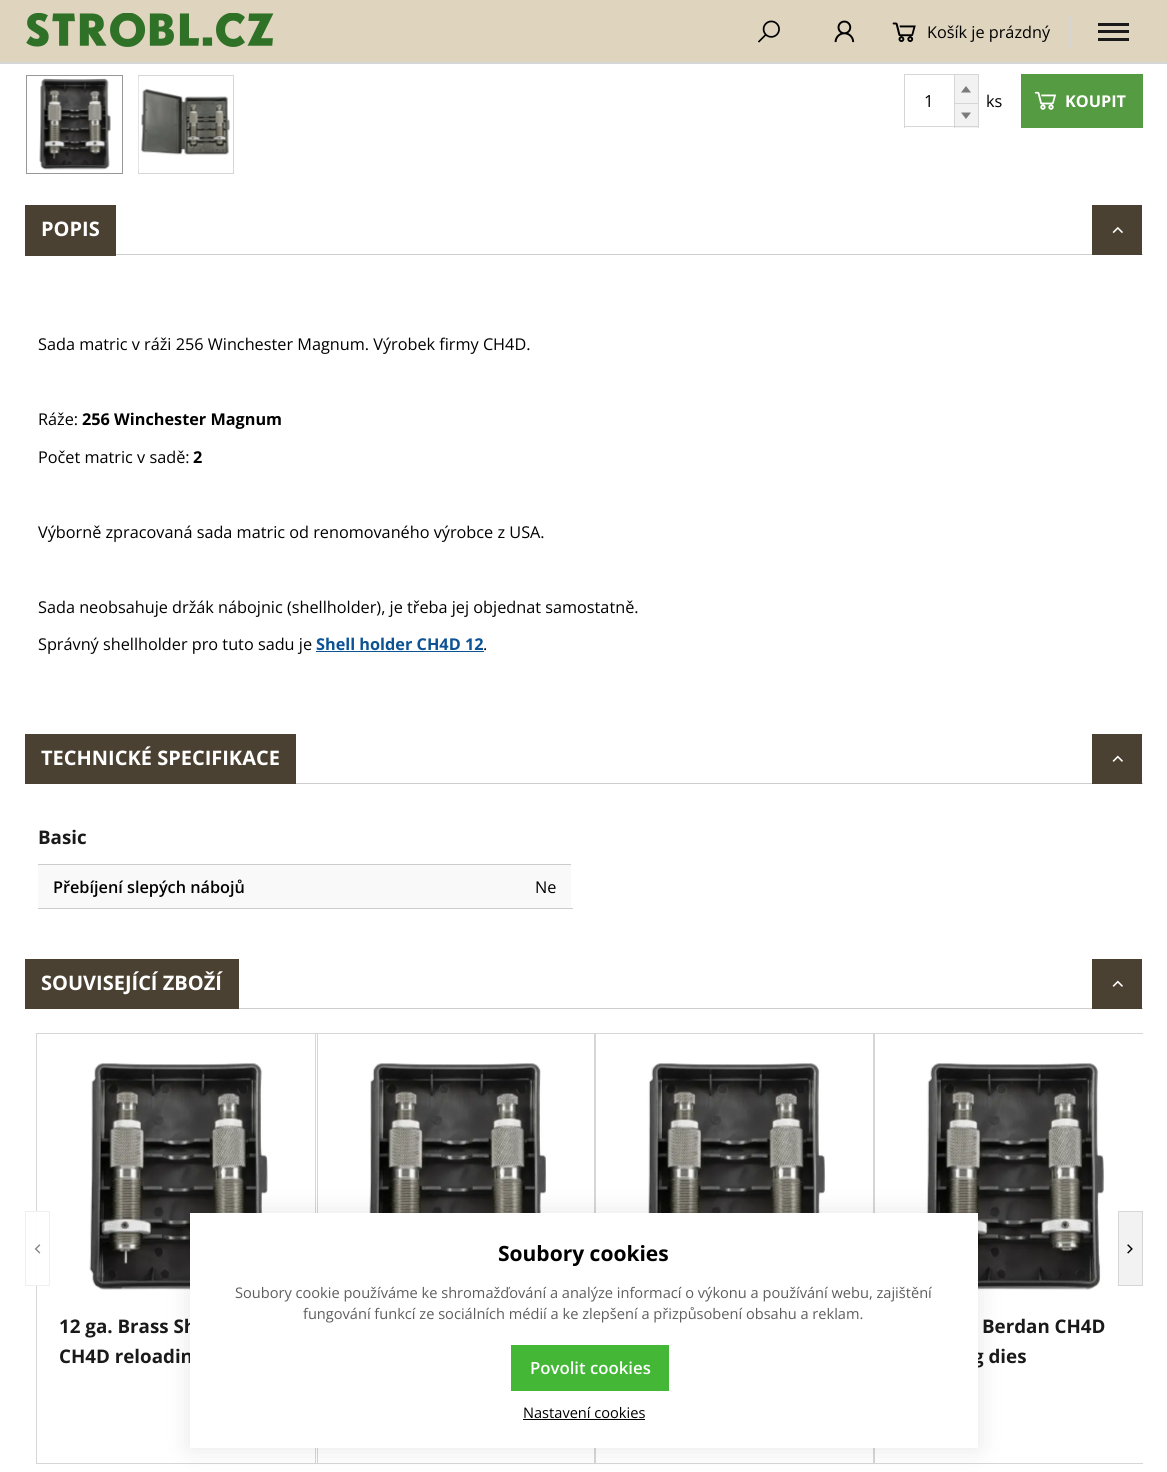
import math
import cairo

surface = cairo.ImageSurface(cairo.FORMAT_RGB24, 1167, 1472)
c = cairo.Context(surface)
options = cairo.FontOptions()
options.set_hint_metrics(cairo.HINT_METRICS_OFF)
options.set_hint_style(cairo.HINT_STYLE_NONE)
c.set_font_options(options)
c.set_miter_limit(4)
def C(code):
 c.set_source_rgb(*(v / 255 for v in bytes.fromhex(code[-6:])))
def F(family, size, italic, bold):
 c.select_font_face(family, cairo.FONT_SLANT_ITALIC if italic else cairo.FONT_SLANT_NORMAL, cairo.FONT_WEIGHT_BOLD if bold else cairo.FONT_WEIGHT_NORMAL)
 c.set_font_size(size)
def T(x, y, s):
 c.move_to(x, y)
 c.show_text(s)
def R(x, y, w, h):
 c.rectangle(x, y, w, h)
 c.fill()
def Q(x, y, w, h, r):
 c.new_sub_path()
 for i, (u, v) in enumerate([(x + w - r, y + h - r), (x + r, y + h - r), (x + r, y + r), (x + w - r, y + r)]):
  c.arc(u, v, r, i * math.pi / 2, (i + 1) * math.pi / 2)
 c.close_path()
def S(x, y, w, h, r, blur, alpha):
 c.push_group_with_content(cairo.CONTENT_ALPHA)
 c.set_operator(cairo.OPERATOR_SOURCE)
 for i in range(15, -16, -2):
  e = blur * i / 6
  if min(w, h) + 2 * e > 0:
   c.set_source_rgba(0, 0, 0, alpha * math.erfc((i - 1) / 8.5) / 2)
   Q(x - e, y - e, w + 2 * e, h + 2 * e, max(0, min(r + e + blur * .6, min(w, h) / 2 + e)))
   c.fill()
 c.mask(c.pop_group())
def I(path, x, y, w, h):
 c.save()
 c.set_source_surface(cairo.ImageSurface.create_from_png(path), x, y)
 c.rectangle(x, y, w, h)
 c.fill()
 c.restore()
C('ffffff')
c.paint()
C('dfd5be')
R(0,0,1167,62)
I('1.png',26,13,248,34)
I('2.png',757,20,23,23)
I('3.png',834,20,21,23)
C('d6d6d6')
R(1070,16,1,32)
I('4.png',892,22,24,21)
F('Open Sans',16.25,0,0)
C('000000')
T(927,38,'Košík je prázdný')
C('1a1a1a')
R(1098,23,31,3)
R(1098,30,31,3)
R(1098,38,31,3)
C('d6d6d6')
c.new_path()
c.move_to(0,62)
c.line_to(0,64)
c.line_to(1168,64)
c.line_to(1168,1)
c.line_to(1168,62)
c.close_path()
c.fill()
c.rectangle(26.5,75.5,96,98)
C('989898')
c.set_line_width(1)
c.stroke()
I('5.png',39,78,72,92)
c.rectangle(138.5,75.5,95,98)
C('d6d6d6')
c.stroke()
I('6.png',138,77,92,94)
R(904,74,50,1)
R(904,126,50,1)
R(904,74,1,54)
F('Open Sans',16.75,0,0)
C('000000')
T(924,107,'1')
C('f2f2f2')
c.rectangle(954.5,74.5,24,29)
c.fill_preserve()
C('d6d6d6')
c.stroke()
C('7b7b7b')
c.new_path()
c.move_to(971,92.5)
c.line_to(961,92.5)
c.line_to(966,86)
c.close_path()
c.fill()
C('f2f2f2')
R(955,104,23,24)
C('d6d6d6')
R(978,104,1,24)
R(954,126,25,1)
R(954,104,1,24)
C('7b7b7b')
c.new_path()
c.move_to(961,112.5)
c.line_to(971,112.5)
c.line_to(966,119)
c.close_path()
c.fill()
F('Open Sans',16.25,0,0)
C('000000')
T(986,107,'ks')
C('549b42')
R(1021,74,122,54)
I('7.png',1034,91,23,19)
F('Open Sans',16.25,0,1)
C('ffffff')
T(1065,107,'KOUPIT')
C('cecece')
R(116,254,1027,1)
C('4b4132')
R(25,205,91,51)
F('Open Sans',20,0,1)
C('ffffff')
T(41,236,'POPIS')
C('4b4132')
R(1092,205,50,50)
I('8.png',1112,226,11,8)
F('Open Sans',16.25,0,0)
C('000000')
T(38,350,'Sada matric v ráži 256 Winchester Magnum. Výrobek firmy CH4D.')
T(38,425,'Ráže:')
F('Open Sans',16.25,0,1)
T(82,425,'256 Winchester Magnum')
F('Open Sans',16.25,0,0)
T(38,463,'Počet matric v sadě:')
F('Open Sans',16.25,0,1)
T(193,463,'2')
F('Open Sans',16.25,0,0)
T(38,538,'Výborně zpracovaná sada matric od renomovaného výrobce z USA.')
T(38,613,'Sada neobsahuje držák nábojnic (shellholder), je třeba jej objednat samostatně.')
T(38,650,'Správný shellholder pro tuto sadu je')
F('Open Sans',16.25,0,1)
C('0b5394')
T(316,650,'Shell holder CH4D 12')
R(316,651,168,1)
F('Open Sans',16.25,0,0)
C('000000')
T(483,650,'.')
C('cecece')
R(296,783,847,1)
C('4b4132')
R(25,734,271,50)
F('Open Sans',20,0,1)
C('ffffff')
T(41,765,'TECHNICKÉ SPECIFIKACE')
C('4b4132')
R(1092,734,50,50)
I('9.png',1112,755,11,7)
F('Open Sans',18.75,0,1)
C('1a1a1a')
T(38,844,'Basic')
C('cccccc')
R(38,864,533,1)
C('f9f9f9')
R(38,865,533,43)
F('Open Sans SemiBold',16.25,0,0)
C('000000')
T(53,893,'Přebíjení slepých nábojů')
C('cccccc')
R(38,908,535,1)
F('Open Sans',16.25,0,0)
C('000000')
T(535,893,'Ne')
C('cecece')
R(239,1008,904,1)
C('4b4132')
R(25,959,214,50)
F('Open Sans',20,0,1)
C('ffffff')
T(41,990,'SOUVISEJÍCÍ ZBOŽÍ')
C('4b4132')
R(1092,959,50,50)
I('9.png',1112,980,11,7)
c.rectangle(36.5,1033.5,281,430)
C('d6d6d6')
c.stroke()
C('fdfdfd')
R(36,1212,1,73)
c.rectangle(25.5,1211.5,24,74)
C('efefef')
c.stroke()
I('10.png',34,1244,7,10)
c.rectangle(315.5,1033.5,280,430)
C('d6d6d6')
c.stroke()
c.rectangle(594.5,1033.5,280,430)
c.stroke()
c.save()
c.rectangle(25,1021,1118,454)
c.clip()
c.rectangle(873.5,1033.5,280,430)
c.stroke()
c.restore()
C('f2f2f2')
c.rectangle(1118.5,1211.5,24,74)
c.fill_preserve()
C('d6d6d6')
c.stroke()
I('11.png',1127,1244,6,10)
I('12.png',89,1063,179,227)
F('Open Sans',18.75,0,1)
C('1a1a1a')
T(59,1333,'12 ga. Brass Sh')
T(59,1363,'CH4D reloadin')
I('13.png',368,1063,179,150)
I('14.png',647,1063,179,150)
I('15.png',925,1063,180,227)
T(982,1333,'Berdan CH4D')
T(973,1363,'g dies')
C('000000')
S(190,1213,788,235,0,12.5,.1)
C('ffffff')
R(190,1213,788,235)
F('Open Sans',21,0,1)
C('000000')
T(498,1261,'Soubory cookies')
F('Open Sans',14.6,0,0)
C('5e5e5e')
T(235,1298,'Soubory cookie používáme ke shromažďování a analýze informací o výkonu a používání webu, zajištění')
T(303,1319,'fungování funkcí ze sociálních médií a ke zlepšení a přizpůsobení obsahu a reklam.')
C('44b736')
R(511,1345,158,46)
F('Open Sans SemiBold',16.75,0,0)
C('ffffff')
T(530,1374,'Povolit cookies')
F('Open Sans',14.6,0,0)
C('000000')
T(523,1418,'Nastavení cookies')
R(523,1419,122,1)
surface.write_to_png('o.png')
